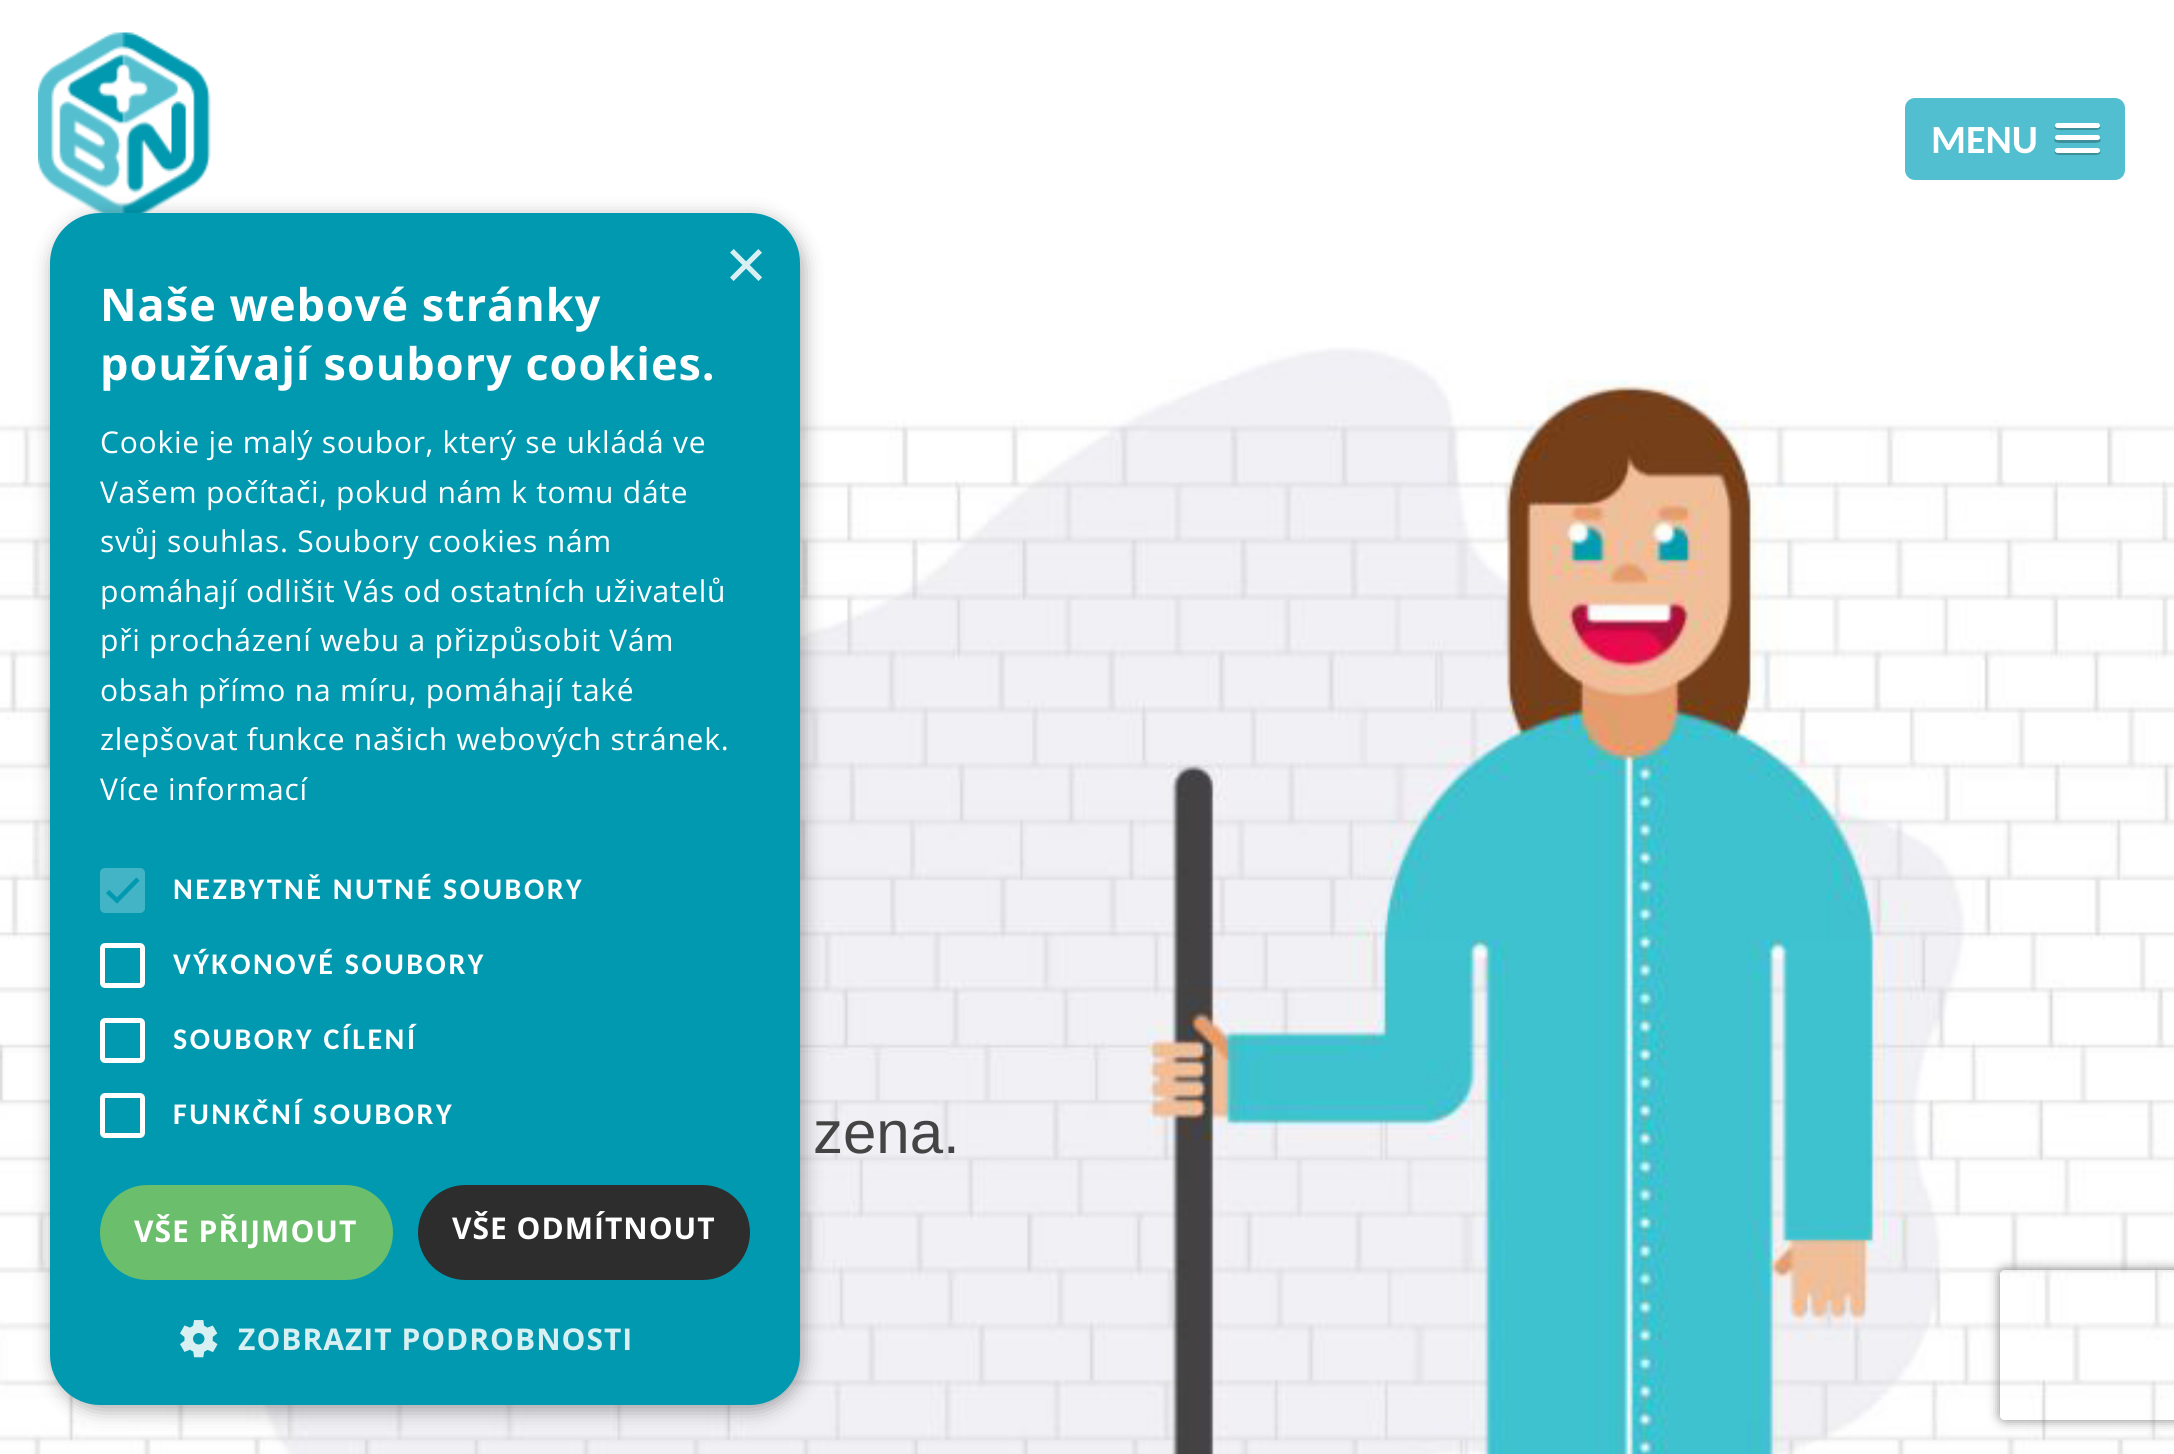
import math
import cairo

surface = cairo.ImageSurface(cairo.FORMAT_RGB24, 2174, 1454)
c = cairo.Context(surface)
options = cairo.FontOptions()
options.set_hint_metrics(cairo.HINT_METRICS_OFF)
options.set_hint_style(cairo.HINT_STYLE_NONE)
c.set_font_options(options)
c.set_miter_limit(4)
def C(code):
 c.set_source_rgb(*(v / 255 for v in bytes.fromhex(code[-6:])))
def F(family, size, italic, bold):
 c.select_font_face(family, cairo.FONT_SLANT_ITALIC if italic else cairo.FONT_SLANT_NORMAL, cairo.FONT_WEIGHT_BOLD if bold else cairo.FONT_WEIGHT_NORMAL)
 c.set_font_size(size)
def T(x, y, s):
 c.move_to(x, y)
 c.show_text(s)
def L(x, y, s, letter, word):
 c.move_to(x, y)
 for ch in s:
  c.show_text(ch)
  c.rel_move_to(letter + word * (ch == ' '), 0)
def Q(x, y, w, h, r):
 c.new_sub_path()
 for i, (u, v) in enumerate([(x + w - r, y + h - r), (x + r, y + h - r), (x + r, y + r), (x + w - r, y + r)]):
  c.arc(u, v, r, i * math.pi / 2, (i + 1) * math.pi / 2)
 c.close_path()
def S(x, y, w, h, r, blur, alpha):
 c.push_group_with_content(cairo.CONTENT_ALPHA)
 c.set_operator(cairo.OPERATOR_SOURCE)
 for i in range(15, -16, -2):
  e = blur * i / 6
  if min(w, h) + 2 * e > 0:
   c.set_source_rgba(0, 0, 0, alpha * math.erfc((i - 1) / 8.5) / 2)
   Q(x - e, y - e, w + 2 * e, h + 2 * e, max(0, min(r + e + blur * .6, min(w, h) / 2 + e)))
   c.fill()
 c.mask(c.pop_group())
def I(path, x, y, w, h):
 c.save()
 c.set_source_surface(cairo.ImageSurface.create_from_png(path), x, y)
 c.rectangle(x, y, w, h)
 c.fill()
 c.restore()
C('ffffff')
c.paint()
I('1.png',38,32,173,182)
C('51bfcf')
Q(1905,98,220,82,10)
c.fill()
F('Carlito',40,0,1)
C('ffffff')
T(1931,153,'MENU')
C('3d8f9b')
c.new_path()
c.move_to(2055,126)
c.curve_to(2052,131,2064,130,2064,130)
c.line_to(2091,130)
c.curve_to(2091,130,2103,131,2100,126)
c.curve_to(2099,127,2098,128,2098,128)
c.line_to(2058,128)
c.curve_to(2057,128,2056,127,2055,126)
c.close_path()
c.fill()
C('ffffff')
Q(2055,123,45,5,2.5)
c.fill()
C('3d8f9b')
c.new_path()
c.move_to(2055,139)
c.curve_to(2052,143,2060,143,2064,143)
c.line_to(2091,143)
c.curve_to(2095,143,2103,143,2100,139)
c.line_to(2098,140)
c.line_to(2057,140)
c.close_path()
c.fill()
C('ffffff')
Q(2055,135,45,5,2.5)
c.fill()
C('3d8f9b')
c.new_path()
c.move_to(2055,151)
c.curve_to(2052,156,2064,155,2064,155)
c.line_to(2091,155)
c.curve_to(2091,155,2103,156,2100,151)
c.curve_to(2099,152,2098,152,2098,152)
c.line_to(2058,152)
c.curve_to(2057,152,2056,152,2055,151)
c.close_path()
c.fill()
C('ffffff')
Q(2055,148,45,5,2.5)
c.fill()
I('3.png',0,347,2174,1107)
C('000000')
S(53,218,750,1192,50,10,.35)
C('0199b0')
Q(50,213,750,1192,50)
c.fill()
F('Liberation Sans',72,0,0)
C('d9f0f3')
T(725,289,'×')
F('Open Sans',45,0,1)
C('ffffff')
L(100,321,'Naše webové stránky',1,0)
L(100,380,'používají soubory cookies.',1,0)
F('Open Sans',30,0,0)
L(100,453,'Cookie je malý soubor, který se ukládá ve',.75,0)
L(100,503,'Vašem počítači, pokud nám k tomu dáte',.75,0)
L(100,552,'svůj souhlas. Soubory cookies nám',.75,0)
L(100,602,'pomáhají odlišit Vás od ostatních uživatelů',.75,0)
L(100,651,'při procházení webu a přizpůsobit Vám',.75,0)
L(100,701,'obsah přímo na míru, pomáhají také',.75,0)
L(100,750,'zlepšovat funkce našich webových stránek.',.75,0)
L(100,800,'Více informací',.75,0)
C('43b4c5')
Q(100,868,45,45,5)
c.fill()
c.new_path()
c.move_to(107.5,891.5)
c.line_to(117,900.5)
c.line_to(138,879)
C('0199b0')
c.set_line_width(4.6)
c.stroke()
F('Carlito',30,0,1)
C('ffffff')
L(173,899,'NEZBYTNĚ NUTNÉ SOUBORY',2.5,0)
Q(102.5,945.5,40,40,2.5)
c.set_line_width(5)
c.stroke()
L(173,974,'VÝKONOVÉ SOUBORY',2.5,0)
Q(102.5,1020.5,40,40,2.5)
c.stroke()
L(173,1049,'SOUBORY CÍLENÍ',2.5,0)
Q(102.5,1095.5,40,40,2.5)
c.stroke()
L(173,1124,'FUNKČNÍ SOUBORY',2.5,0)
C('6bbe6b')
Q(100,1185,293,95,47.5)
c.fill()
F('Open Sans',30,0,1)
C('ffffff')
L(134,1242,'VŠE PŘIJMOUT',1,0)
C('2d2d2d')
Q(418,1185,332,95,47.5)
c.fill()
C('ffffff')
L(452,1239,'VŠE ODMÍTNOUT',1,0)
I('2.png',180,1320,38,38)
C('d9f0f3')
L(238,1350,'ZOBRAZIT PODROBNOSTI',1,0)
F('Liberation Sans',60,0,0)
C('444444')
T(813,1153,'zena.')
c.save()
c.set_fill_rule(cairo.FILL_RULE_EVEN_ODD)
c.new_path()
c.move_to(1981,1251)
c.line_to(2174,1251)
c.line_to(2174,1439)
c.line_to(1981,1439)
c.close_path()
c.move_to(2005,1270)
c.line_to(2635,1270)
c.curve_to(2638,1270,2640,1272,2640,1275)
c.line_to(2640,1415)
c.curve_to(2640,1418,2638,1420,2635,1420)
c.line_to(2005,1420)
c.curve_to(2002,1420,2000,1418,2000,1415)
c.line_to(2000,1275)
c.curve_to(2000,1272,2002,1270,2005,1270)
c.close_path()
c.clip()
C('808080')
S(2000,1270,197,150,5,6,1)
c.restore()
surface.write_to_png('o.png')
